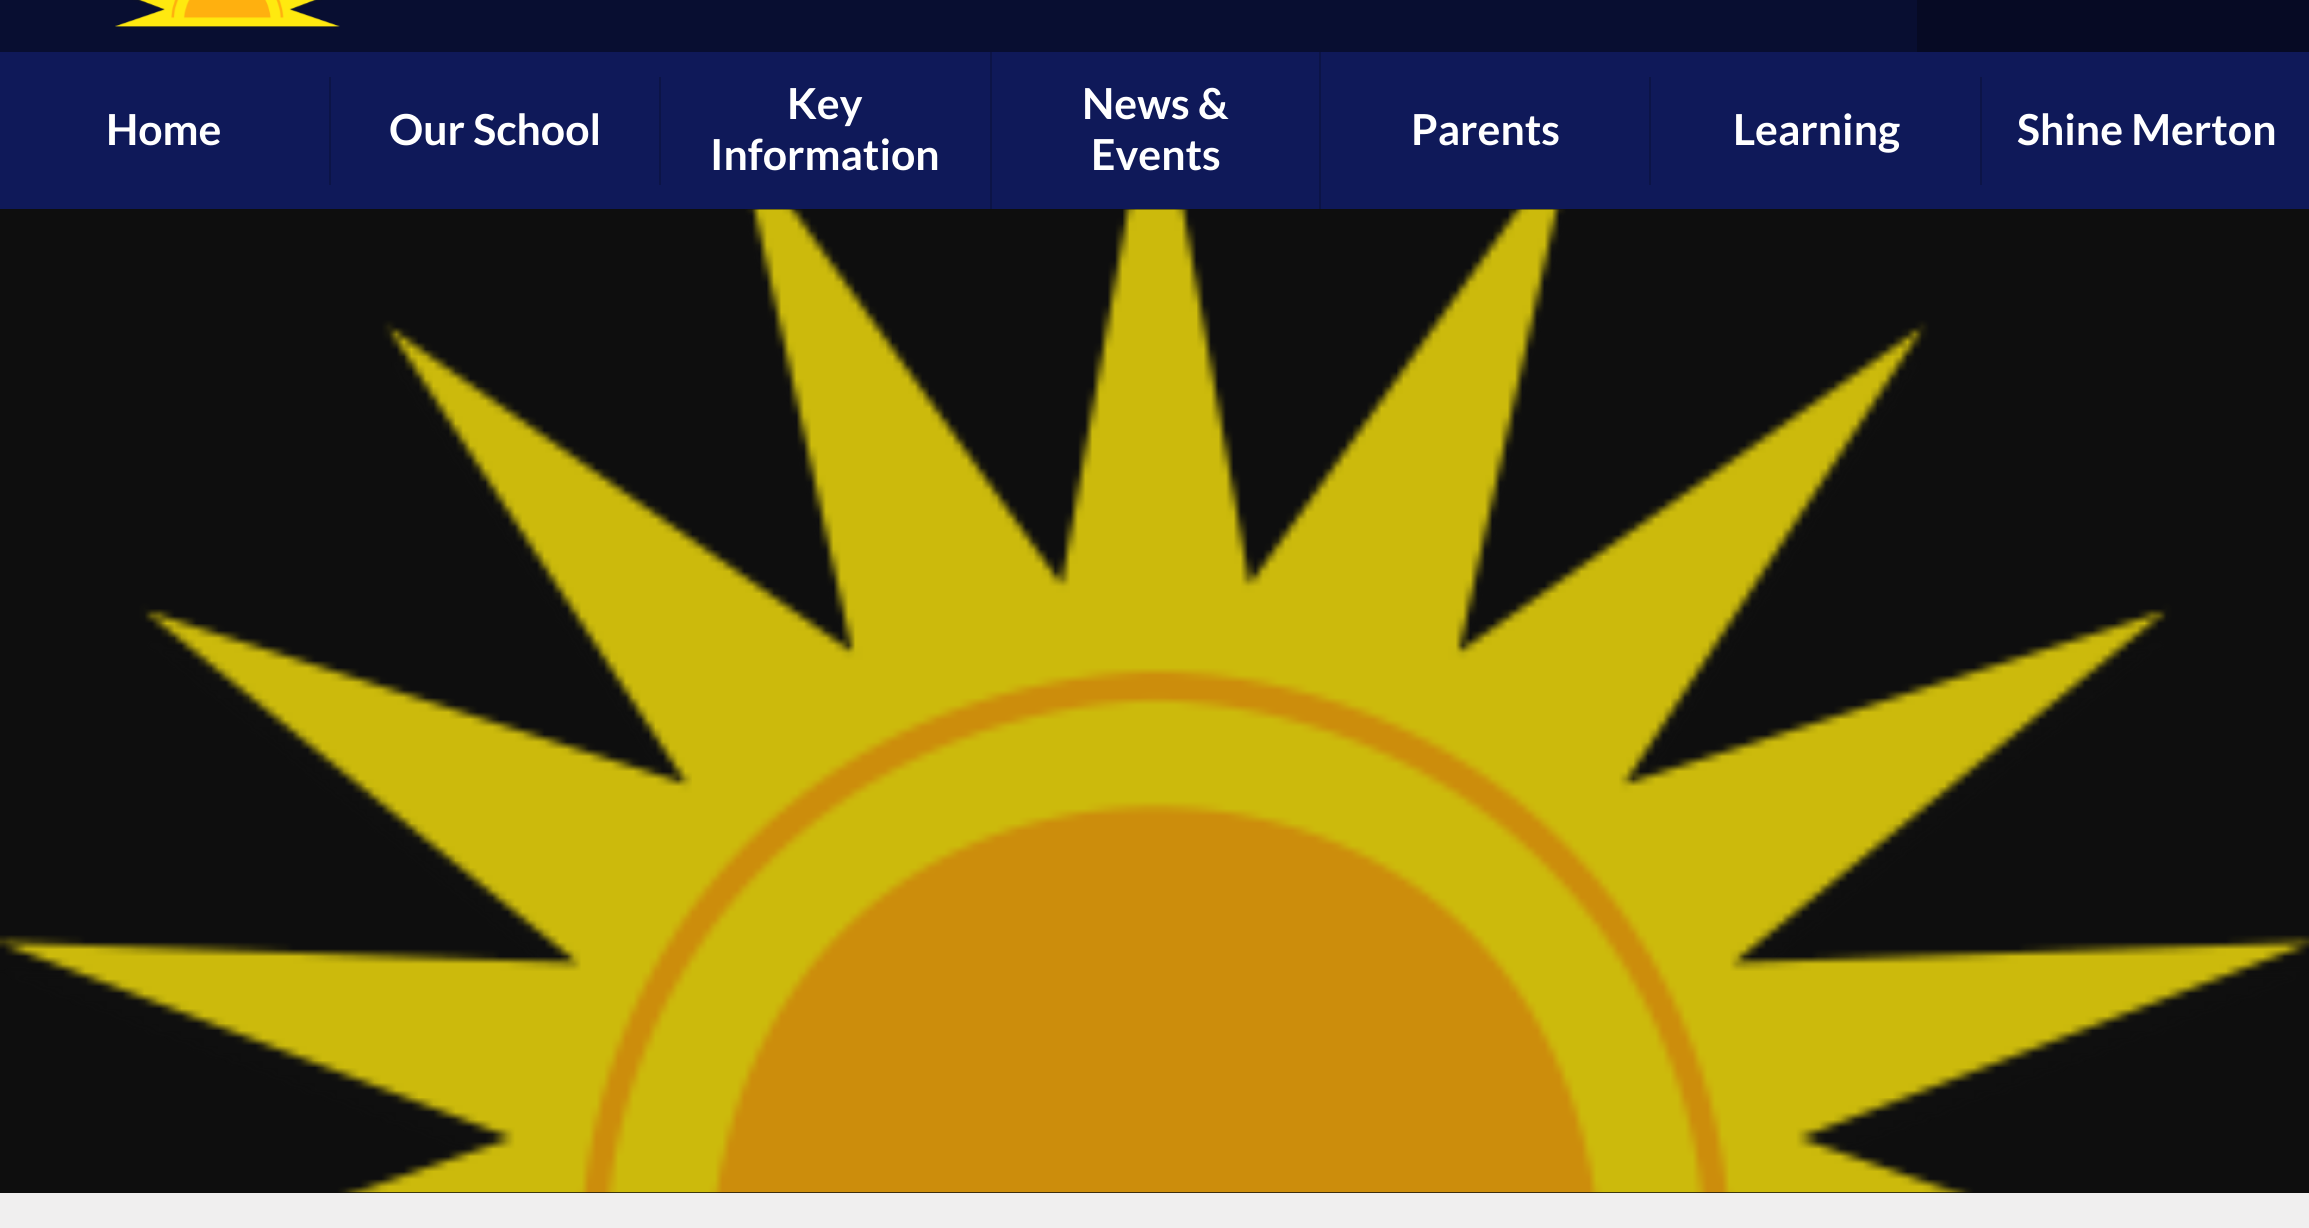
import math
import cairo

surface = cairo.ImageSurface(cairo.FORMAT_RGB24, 2309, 1228)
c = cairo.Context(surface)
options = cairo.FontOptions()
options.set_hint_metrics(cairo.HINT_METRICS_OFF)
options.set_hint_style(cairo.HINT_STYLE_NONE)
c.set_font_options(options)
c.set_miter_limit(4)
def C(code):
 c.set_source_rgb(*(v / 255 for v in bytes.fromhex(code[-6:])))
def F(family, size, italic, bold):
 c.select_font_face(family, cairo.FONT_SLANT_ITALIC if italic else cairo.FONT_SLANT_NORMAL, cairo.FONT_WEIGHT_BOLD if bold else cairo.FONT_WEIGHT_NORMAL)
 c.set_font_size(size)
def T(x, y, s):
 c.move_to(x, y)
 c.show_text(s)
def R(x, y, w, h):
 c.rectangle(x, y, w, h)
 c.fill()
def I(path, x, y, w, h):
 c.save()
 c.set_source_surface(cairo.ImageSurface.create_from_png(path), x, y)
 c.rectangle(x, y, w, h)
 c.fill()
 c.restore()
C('0e0e0e')
c.paint()
C('0f1959')
R(0,52,2309,157)
C('080e31')
R(0,0,1917,52)
I('1.png',115,0,225,29)
C('060a24')
R(1917,0,392,52)
C('0c1447')
R(329,77,2,108)
F('Lato',42.75,0,1)
C('ffffff')
T(106,145,'Home')
C('0c1447')
R(659,77,2,108)
C('ffffff')
T(389,145,'Our School')
C('0c1447')
R(990,52,2,157)
C('ffffff')
T(787,119,'Key')
T(710,170,'Information')
C('0c1447')
R(1319,52,2,157)
C('ffffff')
T(1082,119,'News &')
T(1091,170,'Events')
C('0c1447')
R(1649,77,2,108)
C('ffffff')
T(1411,145,'Parents')
C('0c1447')
R(1980,77,2,108)
C('ffffff')
T(1733,145,'Learning')
T(2017,145,'Shine Merton')
I('2.png',0,209,2309,984)
C('f0efef')
R(0,1193,2309,35)
surface.write_to_png('o.png')
